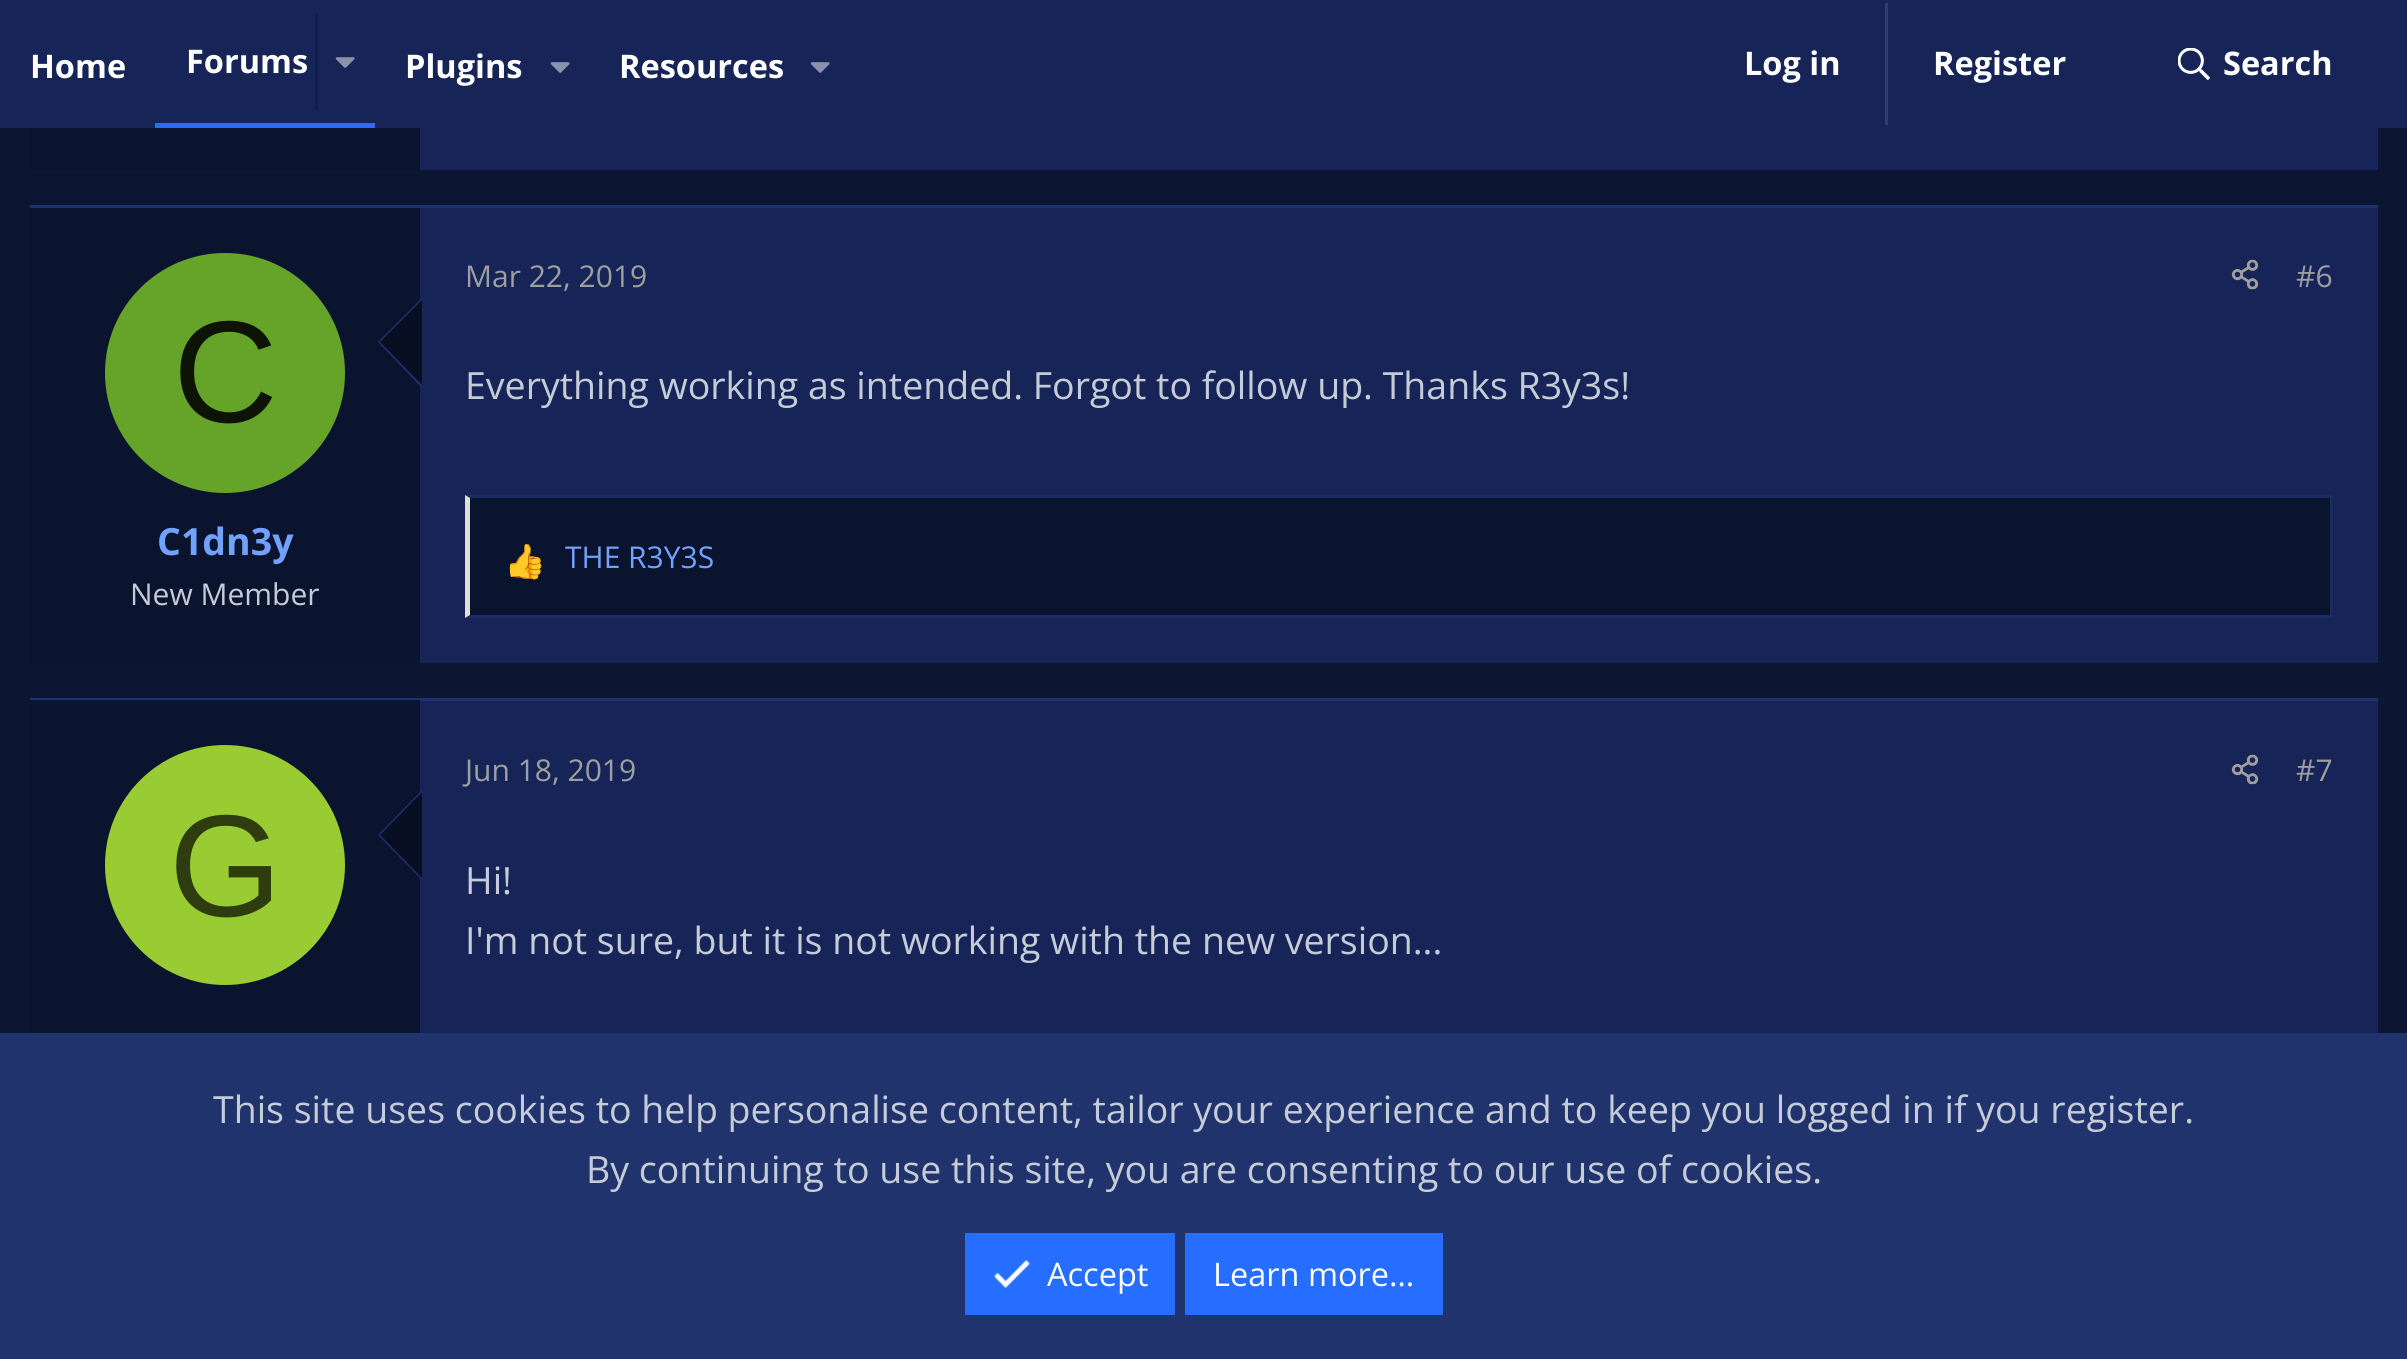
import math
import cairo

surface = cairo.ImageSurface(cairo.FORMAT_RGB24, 2407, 1359)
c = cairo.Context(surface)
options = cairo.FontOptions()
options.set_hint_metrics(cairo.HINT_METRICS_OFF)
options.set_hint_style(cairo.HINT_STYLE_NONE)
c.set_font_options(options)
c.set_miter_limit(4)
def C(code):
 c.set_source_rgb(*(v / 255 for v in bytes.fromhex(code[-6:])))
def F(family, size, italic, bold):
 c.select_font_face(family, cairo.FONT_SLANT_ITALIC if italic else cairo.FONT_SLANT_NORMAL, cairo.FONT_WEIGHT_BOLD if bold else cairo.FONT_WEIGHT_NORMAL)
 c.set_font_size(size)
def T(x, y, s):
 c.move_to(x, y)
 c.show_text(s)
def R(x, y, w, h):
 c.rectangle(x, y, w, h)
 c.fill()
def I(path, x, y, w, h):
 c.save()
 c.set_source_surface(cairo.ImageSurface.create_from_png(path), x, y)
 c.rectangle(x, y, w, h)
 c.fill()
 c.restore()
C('0c1633')
c.paint()
C('162458')
R(0,0,2407,128)
F('Open Sans',32.5,0,1)
C('ffffff')
T(30,78,'Home')
C('256eff')
R(155,123,220,5)
C('ffffff')
T(186,73,'Forums')
C('121e49')
R(315,13,3,97)
I('1.png',335,57,20,11)
C('ffffff')
T(405,78,'Plugins')
I('1.png',550,62,20,11)
T(619,78,'Resources')
I('1.png',810,62,20,11)
T(1744,75,'Log in')
C('303d6b')
R(1885,3,3,122)
C('ffffff')
T(1933,75,'Register')
I('2.png',2178,48,32,32)
T(2223,75,'Search')
C('162458')
R(420,128,1958,42)
C('0b142f')
R(30,128,390,42)
C('162458')
R(420,208,1958,455)
C('1b3171')
R(30,205,2348,3)
C('0b142f')
R(30,208,390,455)
C('66a329')
c.new_path()
c.arc(225,373,120,0,2 * math.pi)
c.fill()
F('Liberation Sans',145,0,0)
C('0d1405')
T(173,422,'C')
C('1b3171')
c.new_path()
c.move_to(422,298)
c.line_to(422,388)
c.line_to(378,342)
c.close_path()
c.fill()
C('080f22')
c.new_path()
c.move_to(422,300)
c.line_to(422,385)
c.line_to(380,342)
c.close_path()
c.fill()
F('Open Sans',37.5,0,1)
C('72a2ff')
T(157,555,'C1dn3y')
F('Open Sans',30,0,0)
C('c6ccd7')
T(130,605,'New Member')
C('9f9f9f')
T(465,287,'Mar 22, 2019')
I('3.png',2231,259,28,31)
T(2296,287,'#6')
F('Open Sans',37.5,0,0)
C('c6ccd7')
T(465,399,'Everything working as intended. Forgot to follow up. Thanks R3y3s!')
C('0b142f')
R(470,498,1860,117)
C('182b65')
c.new_path()
c.move_to(465,495)
c.line_to(2332,495)
c.line_to(2330,498)
c.line_to(470,498)
c.close_path()
c.fill()
R(2330,495,3,123)
c.new_path()
c.move_to(2332,618)
c.line_to(465,618)
c.line_to(470,615)
c.line_to(2330,615)
c.close_path()
c.fill()
C('dedede')
c.new_path()
c.move_to(465,618)
c.line_to(465,495)
c.line_to(470,498)
c.line_to(470,615)
c.close_path()
c.fill()
I('4.png',509,544,33,36)
F('Open Sans',30,0,0)
C('72a2ff')
T(565,568,'THE R3Y3S')
C('162458')
R(420,701,1958,332)
C('1b3171')
R(30,698,2348,3)
C('0b142f')
R(30,700,390,333)
C('99cc33')
c.new_path()
c.arc(225,865,120,0,2 * math.pi)
c.fill()
F('Liberation Sans',145,0,0)
C('2e3d0f')
T(169,916,'G')
C('1b3171')
c.new_path()
c.move_to(422,790)
c.line_to(422,880)
c.line_to(378,835)
c.close_path()
c.fill()
C('080f22')
c.new_path()
c.move_to(422,792)
c.line_to(422,878)
c.line_to(380,835)
c.close_path()
c.fill()
F('Open Sans',30,0,0)
C('9f9f9f')
T(465,781,'Jun 18, 2019')
I('3.png',2231,754,28,31)
T(2296,781,'#7')
F('Open Sans',37.5,0,0)
C('c6ccd7')
T(465,894,'Hi!')
T(465,954,'I\'m not sure, but it is not working with the new version...')
C('20336d')
R(0,1033,2407,326)
C('c6ccd7')
T(213,1123,'This site uses cookies to help personalise content, tailor your experience and to keep you logged in if you register.')
T(586,1183,'By continuing to use this site, you are consenting to our use of cookies.')
C('256eff')
R(965,1233,210,82)
I('5.png',994,1260,36,28)
F('Open Sans',32.5,0,0)
C('ffffff')
T(1047,1286,'Accept')
C('256eff')
R(1185,1233,258,82)
C('ffffff')
T(1213,1286,'Learn more…')
surface.write_to_png('o.png')
